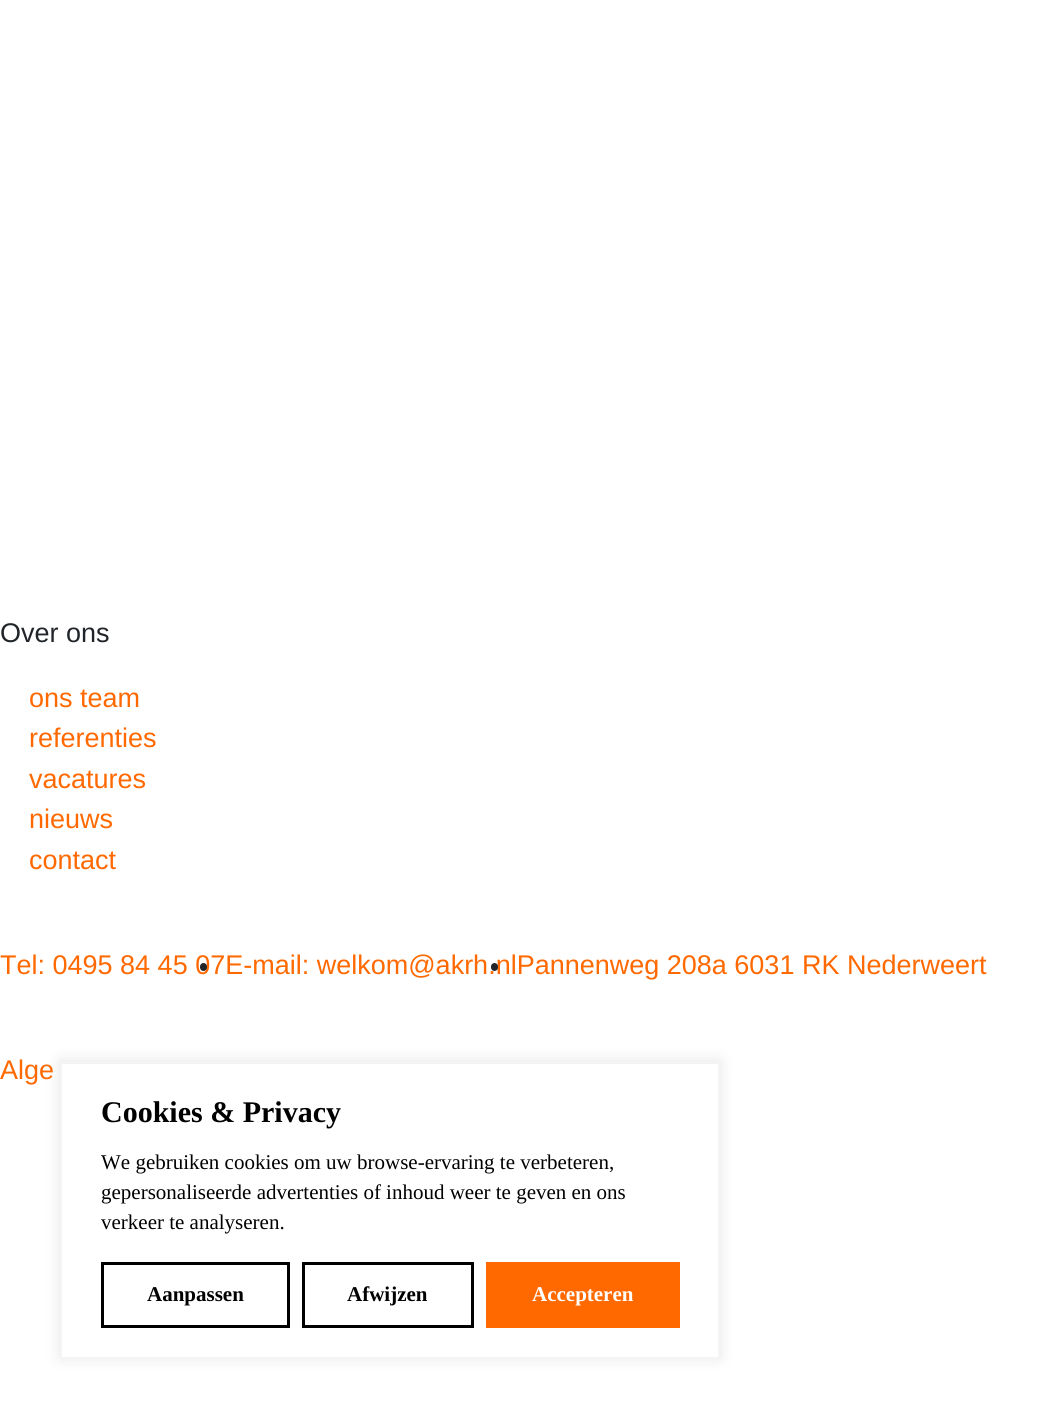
import math
import cairo

surface = cairo.ImageSurface(cairo.FORMAT_RGB24, 1052, 1419)
c = cairo.Context(surface)
options = cairo.FontOptions()
options.set_hint_metrics(cairo.HINT_METRICS_OFF)
options.set_hint_style(cairo.HINT_STYLE_NONE)
c.set_font_options(options)
c.set_miter_limit(4)
def C(code):
 c.set_source_rgb(*(v / 255 for v in bytes.fromhex(code[-6:])))
def F(family, size, italic, bold):
 c.select_font_face(family, cairo.FONT_SLANT_ITALIC if italic else cairo.FONT_SLANT_NORMAL, cairo.FONT_WEIGHT_BOLD if bold else cairo.FONT_WEIGHT_NORMAL)
 c.set_font_size(size)
def T(x, y, s):
 c.move_to(x, y)
 c.show_text(s)
def R(x, y, w, h):
 c.rectangle(x, y, w, h)
 c.fill()
def Q(x, y, w, h, r):
 c.new_sub_path()
 for i, (u, v) in enumerate([(x + w - r, y + h - r), (x + r, y + h - r), (x + r, y + r), (x + w - r, y + r)]):
  c.arc(u, v, r, i * math.pi / 2, (i + 1) * math.pi / 2)
 c.close_path()
def S(x, y, w, h, r, blur, alpha):
 c.push_group_with_content(cairo.CONTENT_ALPHA)
 c.set_operator(cairo.OPERATOR_SOURCE)
 for i in range(15, -16, -2):
  e = blur * i / 6
  if min(w, h) + 2 * e > 0:
   c.set_source_rgba(0, 0, 0, alpha * math.erfc((i - 1) / 8.5) / 2)
   Q(x - e, y - e, w + 2 * e, h + 2 * e, max(0, min(r + e + blur * .6, min(w, h) / 2 + e)))
   c.fill()
 c.mask(c.pop_group())
C('ffffff')
c.paint()
F('Liberation Sans',27,0,0)
C('212529')
T(0,642,'Over ons')
C('ff6900')
T(29,707,'ons team')
T(29,747,'referenties')
T(29,788,'vacatures')
T(29,828,'nieuws')
T(29,869,'contact')
T(0,974,'Tel: 0495 84 45 07E-mail: welkom@akrh.nlPannenweg 208a 6031 RK Nederweert')
C('212529')
Q(200,963,7,8,3.5)
c.fill()
Q(491,963,7,8,3.5)
c.fill()
C('ff6900')
T(0,1079,'Alge')
C('acabab')
S(60,1061,660,297,0,7.5,.3)
C('ffffff')
c.rectangle(61,1063,658,295)
c.fill_preserve()
C('f4f4f4')
c.stroke()
F('Liberation Serif',30,0,1)
C('000000')
T(101,1122,'Cookies & Privacy')
F('Liberation Serif',21,0,0)
T(101,1169,'We gebruiken cookies om uw browse-ervaring te verbeteren,')
T(101,1199,'gepersonaliseerde advertenties of inhoud weer te geven en ons')
T(101,1229,'verkeer te analyseren.')
c.rectangle(102.5,1263.5,186,63)
c.set_line_width(3)
c.stroke()
F('Liberation Serif',21,0,1)
T(147,1301,'Aanpassen')
c.rectangle(303.5,1263.5,169,63)
c.stroke()
T(347,1301,'Afwijzen')
C('ff6900')
R(486,1262,194,66)
C('ffffff')
T(532,1301,'Accepteren')
surface.write_to_png('o.png')
